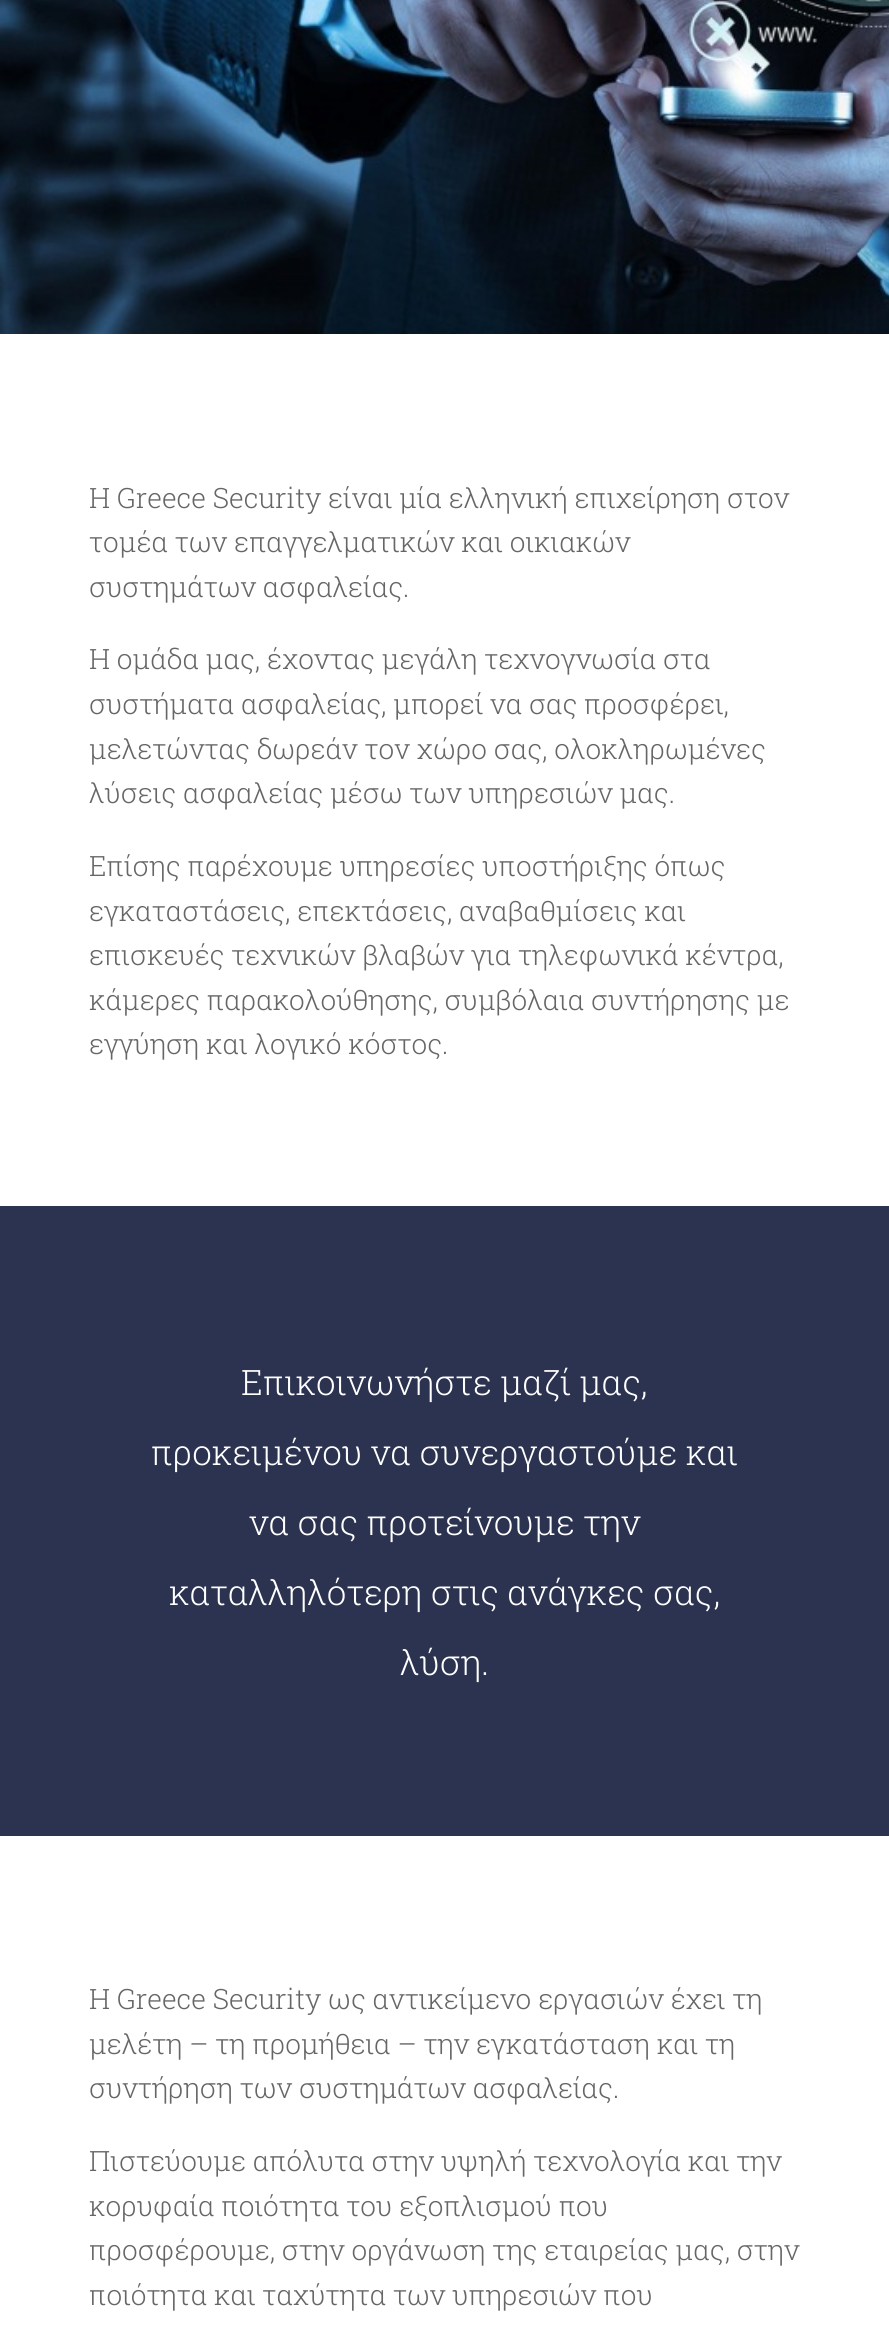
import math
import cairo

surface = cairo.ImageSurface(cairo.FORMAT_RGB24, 889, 2334)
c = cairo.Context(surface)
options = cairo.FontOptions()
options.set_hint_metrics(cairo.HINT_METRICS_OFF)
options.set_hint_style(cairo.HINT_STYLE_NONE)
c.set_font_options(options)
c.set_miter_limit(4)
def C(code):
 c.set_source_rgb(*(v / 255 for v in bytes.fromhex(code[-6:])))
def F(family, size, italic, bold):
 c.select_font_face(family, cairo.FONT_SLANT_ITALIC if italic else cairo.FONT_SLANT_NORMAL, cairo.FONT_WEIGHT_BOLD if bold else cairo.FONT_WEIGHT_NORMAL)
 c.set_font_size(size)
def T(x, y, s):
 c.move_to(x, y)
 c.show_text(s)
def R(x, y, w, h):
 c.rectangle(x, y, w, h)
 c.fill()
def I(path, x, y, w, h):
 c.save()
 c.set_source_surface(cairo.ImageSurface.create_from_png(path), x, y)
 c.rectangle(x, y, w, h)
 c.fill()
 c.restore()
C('ffffff')
c.paint()
I('1.png',0,0,889,334)
F('Roboto Slab Light',28,0,0)
C('666666')
T(89,508,'Η Greece Security είναι μία ελληνική επιχείρηση στον')
T(89,552,'τομέα των επαγγελματικών και οικιακών')
T(89,597,'συστημάτων ασφαλείας.')
T(89,669,'Η ομάδα μας, έχοντας μεγάλη τεχνογνωσία στα')
T(89,714,'συστήματα ασφαλείας, μπορεί να σας προσφέρει,')
T(89,759,'μελετώντας δωρεάν τον χώρο σας, ολοκληρωμένες')
T(89,803,'λύσεις ασφαλείας μέσω των υπηρεσιών μας.')
T(89,876,'Επίσης παρέχουμε υπηρεσίες υποστήριξης όπως')
T(89,921,'εγκαταστάσεις, επεκτάσεις, αναβαθμίσεις και')
T(89,965,'επισκευές τεχνικών βλαβών για τηλεφωνικά κέντρα,')
T(89,1010,'κάμερες παρακολούθησης, συμβόλαια συντήρησης με')
T(89,1054,'εγγύηση και λογικό κόστος.')
C('2c3350')
R(0,1206,889,630)
F('Roboto Slab Light',35,0,0)
C('ffffff')
T(241,1395,'Επικοινωνήστε μαζί μας,')
T(151,1465,'προκειμένου να συνεργαστούμε και')
T(249,1535,'να σας προτείνουμε την')
T(169,1605,'καταλληλότερη στις ανάγκες σας,')
T(400,1675,'λύση.')
F('Roboto Slab Light',28,0,0)
C('666666')
T(89,2009,'Η Greece Security ως αντικείμενο εργασιών έχει τη')
T(89,2054,'μελέτη – τη προμήθεια – την εγκατάσταση και τη')
T(89,2098,'συντήρηση των συστημάτων ασφαλείας.')
T(89,2171,'Πιστεύουμε απόλυτα στην υψηλή τεχνολογία και την')
T(89,2216,'κορυφαία ποιότητα του εξοπλισμού που')
T(89,2260,'προσφέρουμε, στην οργάνωση της εταιρείας μας, στην')
T(89,2305,'ποιότητα και ταχύτητα των υπηρεσιών που')
surface.write_to_png('o.png')
